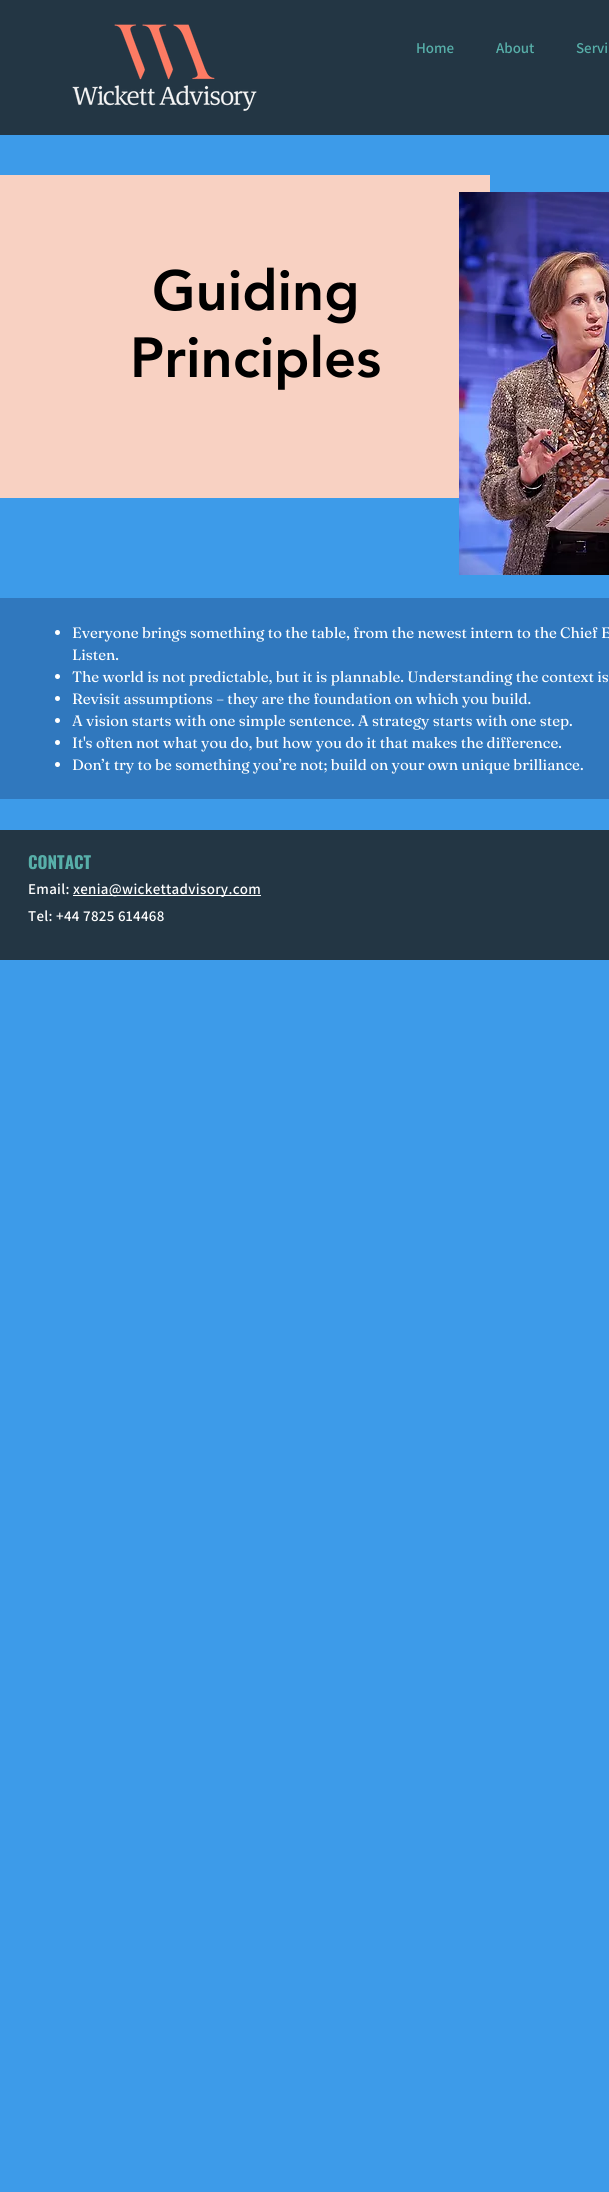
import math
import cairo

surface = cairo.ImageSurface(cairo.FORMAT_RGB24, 609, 2192)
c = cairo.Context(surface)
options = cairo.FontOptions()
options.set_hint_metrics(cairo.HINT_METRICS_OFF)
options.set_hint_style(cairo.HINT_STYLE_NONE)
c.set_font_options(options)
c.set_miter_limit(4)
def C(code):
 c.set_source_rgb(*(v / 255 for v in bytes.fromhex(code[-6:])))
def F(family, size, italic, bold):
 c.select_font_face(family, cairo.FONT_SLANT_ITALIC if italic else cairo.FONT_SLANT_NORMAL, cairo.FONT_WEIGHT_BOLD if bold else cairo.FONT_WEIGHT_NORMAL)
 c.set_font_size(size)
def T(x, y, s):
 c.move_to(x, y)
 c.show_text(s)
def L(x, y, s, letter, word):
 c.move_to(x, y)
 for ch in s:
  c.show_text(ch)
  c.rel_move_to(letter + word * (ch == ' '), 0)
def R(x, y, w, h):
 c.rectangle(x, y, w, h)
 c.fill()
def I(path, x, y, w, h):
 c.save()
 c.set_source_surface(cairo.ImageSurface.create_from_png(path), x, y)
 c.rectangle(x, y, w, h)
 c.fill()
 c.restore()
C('3d9be9')
c.paint()
C('233644')
R(0,0,609,135)
I('1.png',72,24,185,87)
F('Assistant SemiBold',15,0,0)
C('57afa9')
T(416,53,'Home')
T(496,53,'About')
T(576,53,'Servi')
C('f8d1c2')
R(0,175,490,323)
F('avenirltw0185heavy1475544 Black',56,0,0)
C('000000')
T(152,310,'Guiding')
T(130,377,'Principles')
I('2.png',459,192,150,383)
C('3078be')
R(0,598,609,201)
C('ffffff')
c.arc(57.5,632.5,2.5,0,2 * math.pi)
c.fill()
F('Fraunces',15,0,0)
T(72,638,'Everyone brings something to the table, from the newest intern to the Chief E')
T(72,660,'Listen.')
c.new_path()
c.arc(57.5,676.5,2.5,0,2 * math.pi)
c.fill()
T(72,682,'The world is not predictable, but it is plannable. Understanding the context is')
c.new_path()
c.arc(57.5,698.5,2.5,0,2 * math.pi)
c.fill()
T(72,704,'Revisit assumptions – they are the foundation on which you build.')
c.new_path()
c.arc(57.5,720.5,2.5,0,2 * math.pi)
c.fill()
T(72,726,'A vision starts with one simple sentence. A strategy starts with one step.')
c.new_path()
c.arc(57.5,742.5,2.5,0,2 * math.pi)
c.fill()
T(72,748,'It\'s often not what you do, but how you do it that makes the difference.')
c.new_path()
c.arc(57.5,764.5,2.5,0,2 * math.pi)
c.fill()
T(72,770,'Don’t try to be something you’re not; build on your own unique brilliance.')
C('233644')
R(0,830,609,130)
F('Oswald',17,0,1)
C('57afa9')
T(28,869,'CONTACT')
F('Assistant SemiBold',15,0,0)
C('ffffff')
L(28,894,'Email:',.3,0)
R(73,895,188,1)
L(73,894,'xenia@wickettadvisory.com',.3,0)
L(28,921,'Tel: +44 7825 614468',.3,0)
surface.write_to_png('o.png')
